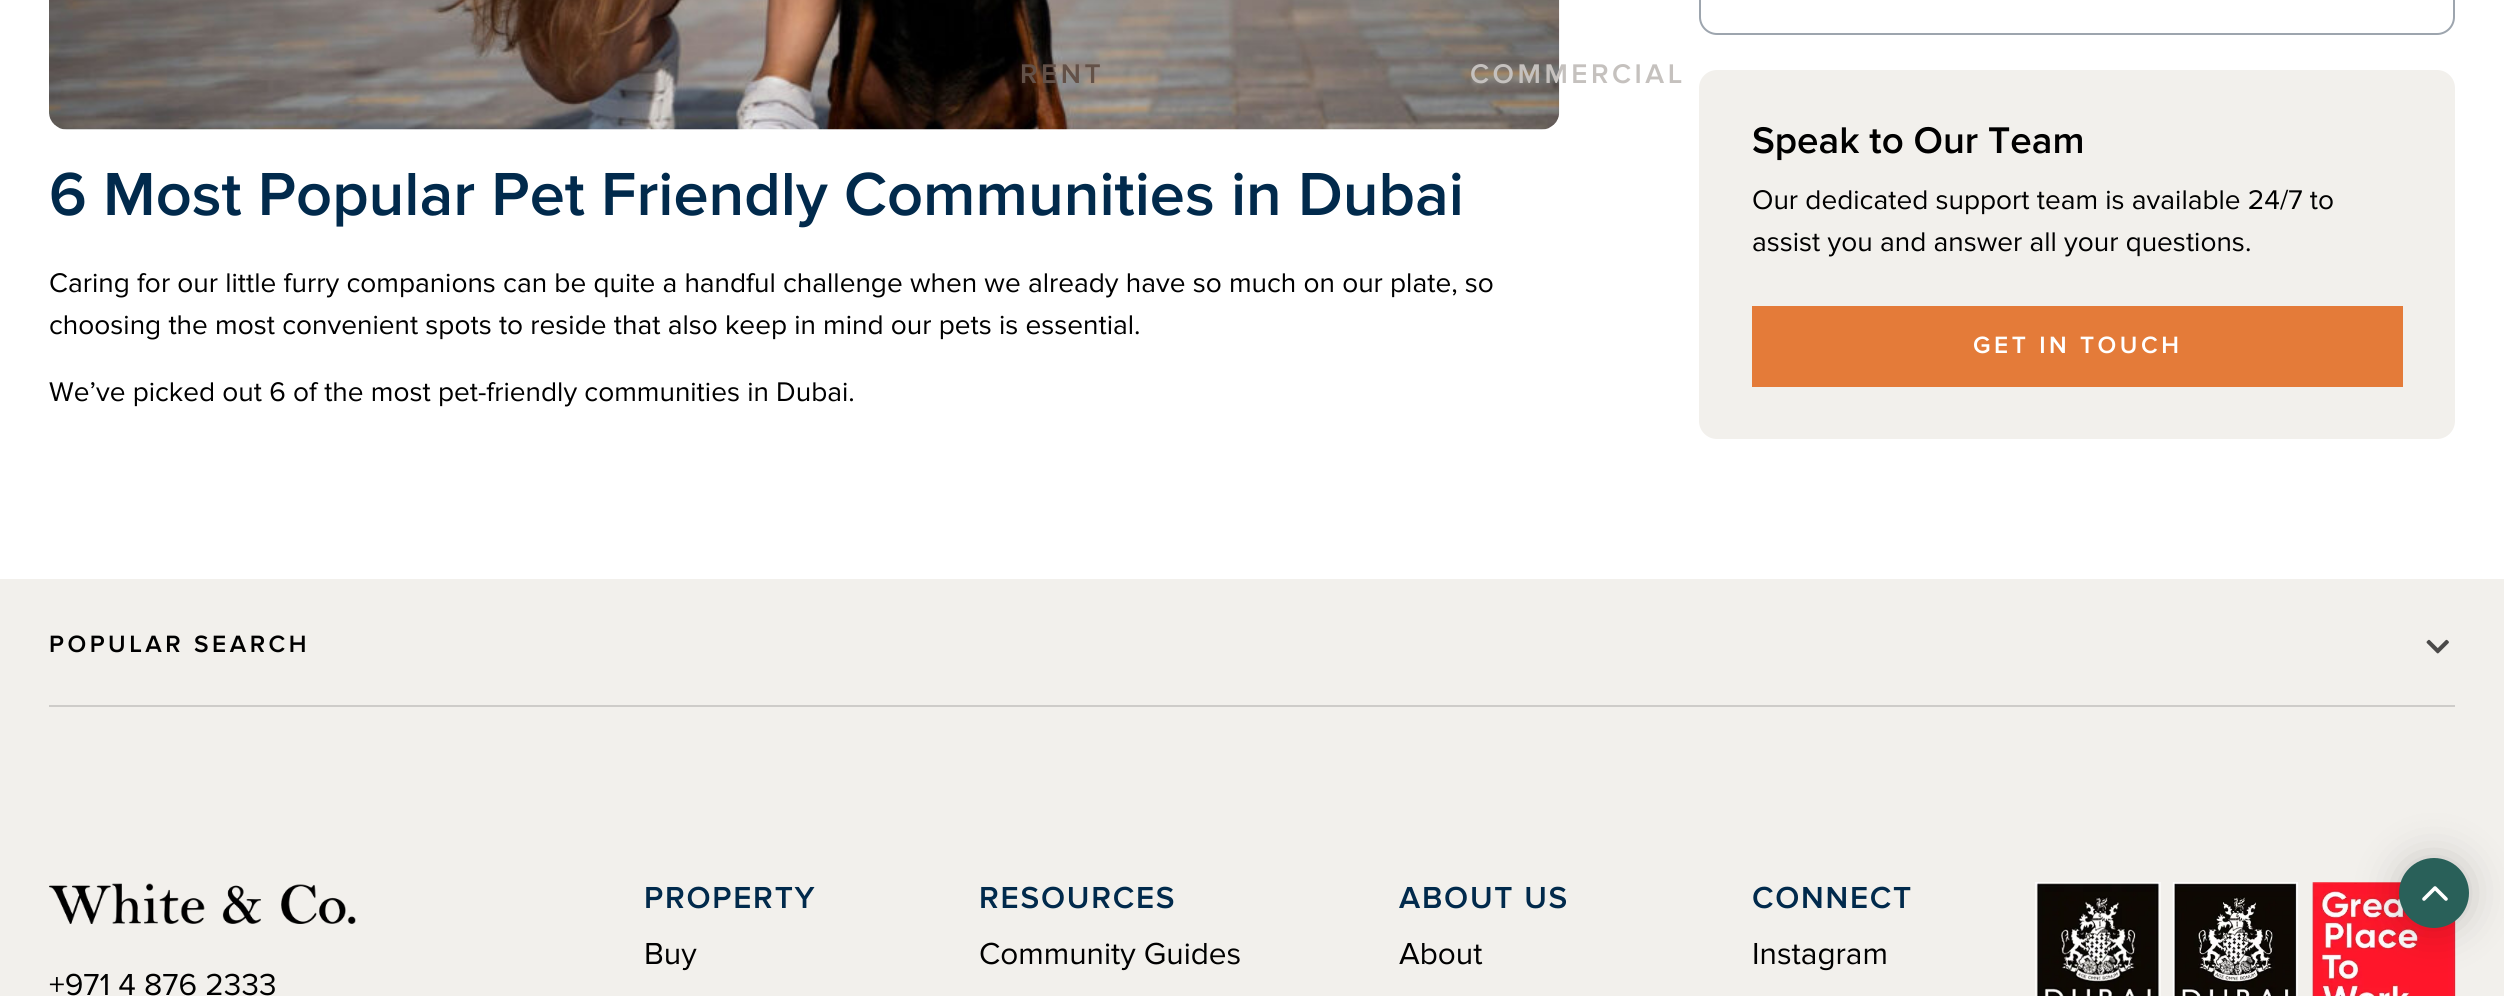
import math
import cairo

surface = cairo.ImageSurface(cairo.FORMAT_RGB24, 2504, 996)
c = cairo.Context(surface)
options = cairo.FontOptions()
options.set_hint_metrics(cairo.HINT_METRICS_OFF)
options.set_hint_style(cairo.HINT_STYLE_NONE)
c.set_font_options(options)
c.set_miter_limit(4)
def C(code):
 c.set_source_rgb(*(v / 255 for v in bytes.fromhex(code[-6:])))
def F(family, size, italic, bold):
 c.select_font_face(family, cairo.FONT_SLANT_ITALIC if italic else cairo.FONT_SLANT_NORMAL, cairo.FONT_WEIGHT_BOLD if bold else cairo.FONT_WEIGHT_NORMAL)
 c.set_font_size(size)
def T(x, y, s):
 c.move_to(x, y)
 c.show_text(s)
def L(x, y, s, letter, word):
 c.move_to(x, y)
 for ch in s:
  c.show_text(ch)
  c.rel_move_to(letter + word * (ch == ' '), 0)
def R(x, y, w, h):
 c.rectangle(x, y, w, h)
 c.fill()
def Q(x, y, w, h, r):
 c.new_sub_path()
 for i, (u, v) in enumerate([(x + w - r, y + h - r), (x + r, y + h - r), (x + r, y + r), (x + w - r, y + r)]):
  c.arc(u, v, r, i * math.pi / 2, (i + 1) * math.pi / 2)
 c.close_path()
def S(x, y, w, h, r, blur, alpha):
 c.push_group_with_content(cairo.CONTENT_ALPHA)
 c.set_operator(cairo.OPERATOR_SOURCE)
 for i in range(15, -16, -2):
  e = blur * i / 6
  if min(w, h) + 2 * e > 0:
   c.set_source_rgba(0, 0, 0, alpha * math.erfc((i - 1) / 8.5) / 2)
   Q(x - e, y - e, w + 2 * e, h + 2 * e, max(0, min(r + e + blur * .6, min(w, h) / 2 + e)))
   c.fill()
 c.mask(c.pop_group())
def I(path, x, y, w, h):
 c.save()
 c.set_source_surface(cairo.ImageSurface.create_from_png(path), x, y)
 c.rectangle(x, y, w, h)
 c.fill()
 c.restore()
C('ffffff')
c.paint()
I('1.png',49,0,1511,130)
F('Proxima Nova SemiBold',28,0,0)
C('635148')
L(1020,83,'RENT',3.5,0)
C('c5c1be')
L(1470,83,'COMMERCIAL',3.5,0)
F('Proxima Nova SemiBold',63,0,0)
C('012a4c')
T(49,215,'6 Most Popular Pet Friendly Communities in Dubai')
F('Proxima Nova',28,0,0)
C('000000')
T(49,292,'Caring for our little furry companions can be quite a handful challenge when we already have so much on our plate, so')
T(49,334,'choosing the most convenient spots to reside that also keep in mind our pets is essential.')
T(49,401,'We’ve picked out 6 of the most pet-friendly communities in Dubai.')
Q(1700,-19,754,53,17)
C('9da5ae')
c.stroke()
C('f2f0ec')
Q(1699,70,756,369,18)
c.fill()
F('Proxima Nova SemiBold',38.5,0,0)
C('000000')
T(1752,153,'Speak to Our Team')
F('Proxima Nova',28,0,0)
T(1752,209,'Our dedicated support team is available 24/7 to')
T(1752,251,'assist you and answer all your questions.')
C('e47b39')
R(1752,306,651,81)
F('Proxima Nova SemiBold',24.5,0,0)
C('ffffff')
L(1973,353,'GET IN TOUCH',3.5,0)
C('f2f0ec')
R(0,579,2504,417)
C('ceccc9')
R(49,705,2406,2)
C('000000')
L(49,652,'POPULAR SEARCH',3.5,0)
I('2.png',2426,639,23,15)
F('Proxima Nova SemiBold',31.5,0,0)
C('012a4c')
L(644,908,'PROPERTY',1.75,0)
F('Proxima Nova',31.5,0,0)
C('000000')
T(644,964,'Buy')
F('Proxima Nova SemiBold',31.5,0,0)
C('012a4c')
L(979,908,'RESOURCES',1.75,0)
F('Proxima Nova',31.5,0,0)
C('000000')
T(979,964,'Community Guides')
F('Proxima Nova SemiBold',31.5,0,0)
C('012a4c')
L(1399,908,'ABOUT US',1.75,0)
F('Proxima Nova',31.5,0,0)
C('000000')
T(1399,964,'About')
F('Proxima Nova SemiBold',31.5,0,0)
C('012a4c')
L(1752,908,'CONNECT',1.75,0)
F('Proxima Nova',31.5,0,0)
C('000000')
T(1752,964,'Instagram')
I('3.png',2035,882,421,114)
I('4.png',49,883,307,41)
T(49,995,'+971 4 876 2333')
C('000000')
S(2399,858,70,70,35,21,.18)
C('296059')
c.arc(2434,893,35,0,2 * math.pi)
c.fill()
c.new_path()
c.move_to(2424,899)
c.line_to(2435,888)
c.line_to(2446,899)
C('ffffff')
c.set_line_width(3.6)
c.set_line_cap(cairo.LINE_CAP_ROUND)
c.set_line_join(cairo.LINE_JOIN_ROUND)
c.stroke()
surface.write_to_png('o.png')
